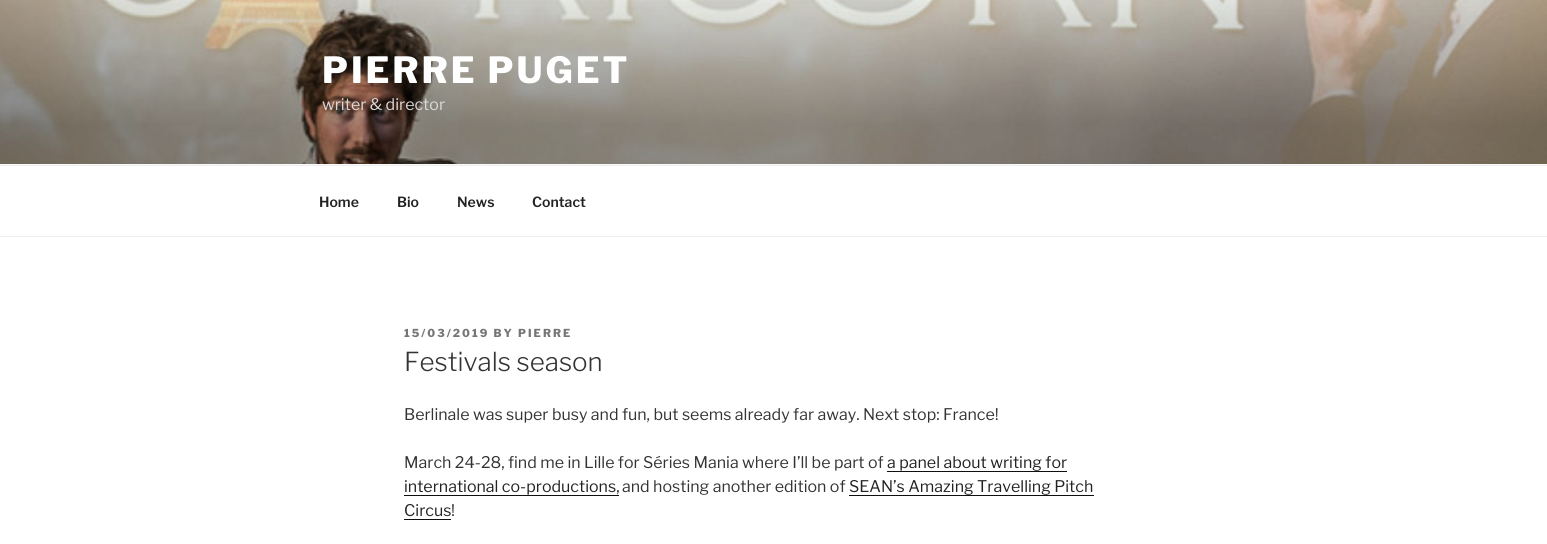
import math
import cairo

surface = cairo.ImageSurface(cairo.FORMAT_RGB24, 1547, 544)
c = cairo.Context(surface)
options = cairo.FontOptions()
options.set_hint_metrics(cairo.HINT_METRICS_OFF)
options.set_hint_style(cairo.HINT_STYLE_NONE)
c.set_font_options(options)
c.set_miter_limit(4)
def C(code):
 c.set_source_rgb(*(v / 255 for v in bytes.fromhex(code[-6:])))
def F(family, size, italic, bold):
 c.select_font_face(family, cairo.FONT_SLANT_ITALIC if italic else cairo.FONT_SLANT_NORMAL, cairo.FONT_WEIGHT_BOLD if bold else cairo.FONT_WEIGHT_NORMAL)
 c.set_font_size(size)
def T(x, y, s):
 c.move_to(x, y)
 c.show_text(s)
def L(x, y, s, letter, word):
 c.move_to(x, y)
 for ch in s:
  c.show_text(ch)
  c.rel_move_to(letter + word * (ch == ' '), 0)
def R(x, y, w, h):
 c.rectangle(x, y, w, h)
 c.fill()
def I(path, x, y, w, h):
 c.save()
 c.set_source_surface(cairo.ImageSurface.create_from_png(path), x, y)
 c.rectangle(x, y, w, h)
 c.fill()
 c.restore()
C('ffffff')
c.paint()
C('fafafa')
R(0,164,1547,1)
I('1.png',0,0,1547,164)
F('Libre Franklin Thin',36,0,0)
C('ffffff')
L(322,83,'PIERRE PUGET',2.9,0)
F('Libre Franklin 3 Thin',16,0,0)
C('ddd9d7')
T(322,110,'writer & director')
C('eeeeee')
R(0,165,1547,1)
R(0,236,1547,1)
F('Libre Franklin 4 Thin',14,0,0)
C('222222')
T(319,207,'Home')
T(397,207,'Bio')
T(457,207,'News')
T(532,207,'Contact')
F('Libre Franklin Thin',11,0,0)
C('767676')
L(404,337,'15/03/2019 BY PIERRE',2,0)
F('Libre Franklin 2 Thin',26,0,0)
C('333333')
T(404,371,'Festivals season')
F('Libre Franklin 3 Thin',16,0,0)
T(404,420,'Berlinale was super busy and fun, but seems already far away. Next stop: France!')
T(404,468,'March 24-28, find me in Lille for Séries Mania where I’ll be part of')
C('222222')
T(887,468,'a panel about writing for')
C('0f0f0f')
R(887,471,180,1)
C('222222')
T(404,492,'international co-productions,')
C('0f0f0f')
R(404,495,215,1)
C('333333')
T(622,492,'and hosting another edition of')
C('222222')
T(849,492,'SEAN’s Amazing Travelling Pitch')
C('0f0f0f')
R(849,495,245,1)
C('222222')
T(404,516,'Circus')
C('0f0f0f')
R(404,519,47,1)
C('333333')
T(451,516,'!')
surface.write_to_png('o.png')
